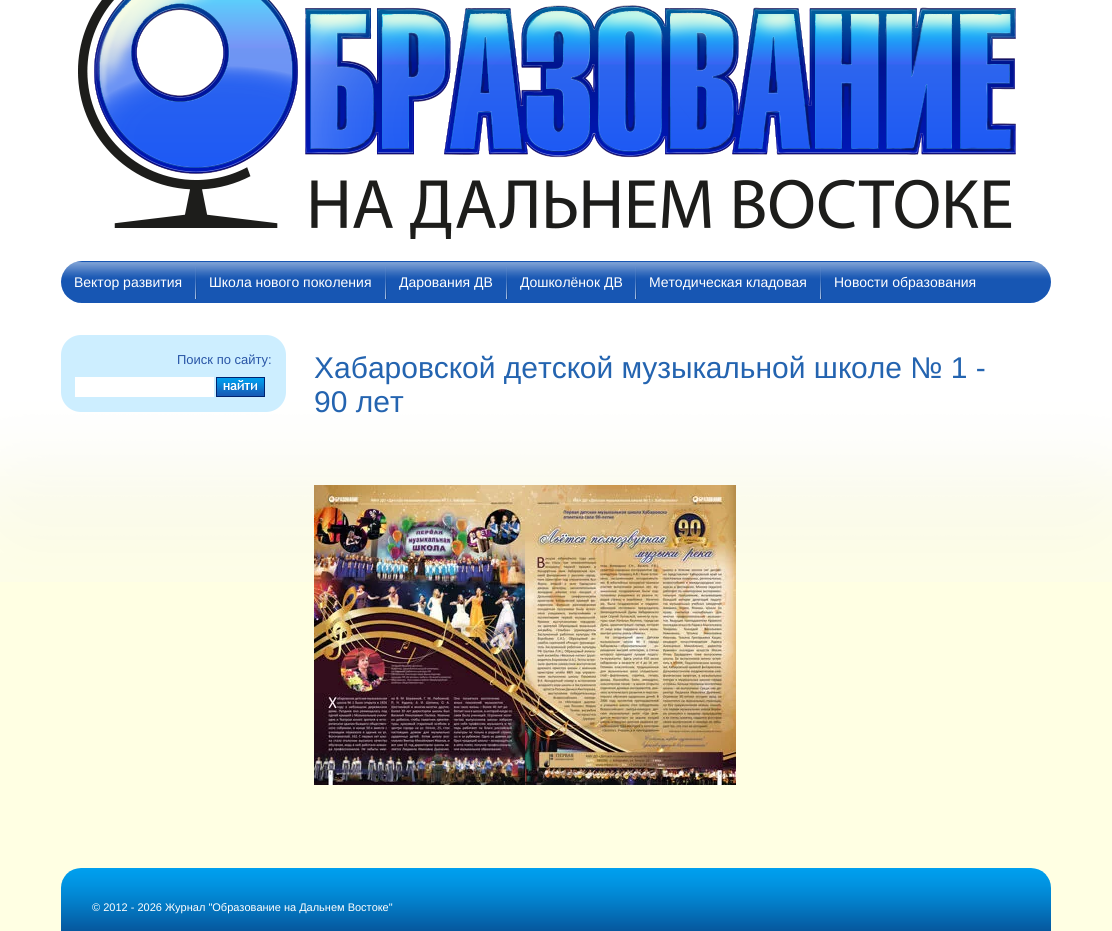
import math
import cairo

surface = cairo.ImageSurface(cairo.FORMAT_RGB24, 1112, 931)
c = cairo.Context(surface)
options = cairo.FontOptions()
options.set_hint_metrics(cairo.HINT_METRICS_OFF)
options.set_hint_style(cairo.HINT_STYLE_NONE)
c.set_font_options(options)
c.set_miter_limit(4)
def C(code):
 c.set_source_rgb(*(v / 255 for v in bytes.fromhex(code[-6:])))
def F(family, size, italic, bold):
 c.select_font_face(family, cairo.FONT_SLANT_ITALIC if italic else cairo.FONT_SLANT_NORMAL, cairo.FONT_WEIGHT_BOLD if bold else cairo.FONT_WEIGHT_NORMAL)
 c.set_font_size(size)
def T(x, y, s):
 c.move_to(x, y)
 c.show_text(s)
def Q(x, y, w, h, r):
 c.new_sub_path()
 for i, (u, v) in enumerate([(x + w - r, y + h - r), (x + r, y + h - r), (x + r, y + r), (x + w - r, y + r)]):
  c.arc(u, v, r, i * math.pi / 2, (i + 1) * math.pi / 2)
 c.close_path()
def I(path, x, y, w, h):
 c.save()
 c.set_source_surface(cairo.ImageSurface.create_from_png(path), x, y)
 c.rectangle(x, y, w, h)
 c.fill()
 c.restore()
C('ffffe3')
c.paint()
I('1.png',0,0,1112,582)
I('2.png',78,0,938,239)
I('3.png',61,261,990,42)
F('Liberation Sans',14,0,0)
C('ffffff')
T(74,287,'Вектор развития')
I('4.png',195,267,2,32)
T(209,287,'Школа нового поколения')
I('4.png',385,267,2,32)
T(399,287,'Дарования ДВ')
I('4.png',506,267,2,32)
T(520,287,'Дошколёнок ДВ')
I('4.png',635,267,2,32)
T(649,287,'Методическая кладовая')
I('4.png',820,267,2,32)
T(834,287,'Новости образования')
C('cdeeff')
Q(61,335,225,77,20)
c.fill()
F('Liberation Sans',13,0,0)
C('2855a6')
T(177,364,'Поиск по сайту:')
I('5.png',75,377,190,20)
F('Liberation Sans',30,0,0)
C('2464b0')
T(314,378,'Хабаровской детской музыкальной школе № 1 -')
T(314,412,'90 лет')
I('6.png',314,485,211,300)
I('7.png',525,485,211,300)
I('8.png',61,868,990,63)
F('Liberation Sans',11,0,0)
C('ffffff')
T(92,911,'© 2012 - 2026 Журнал "Образование на Дальнем Востоке"')
surface.write_to_png('o.png')
